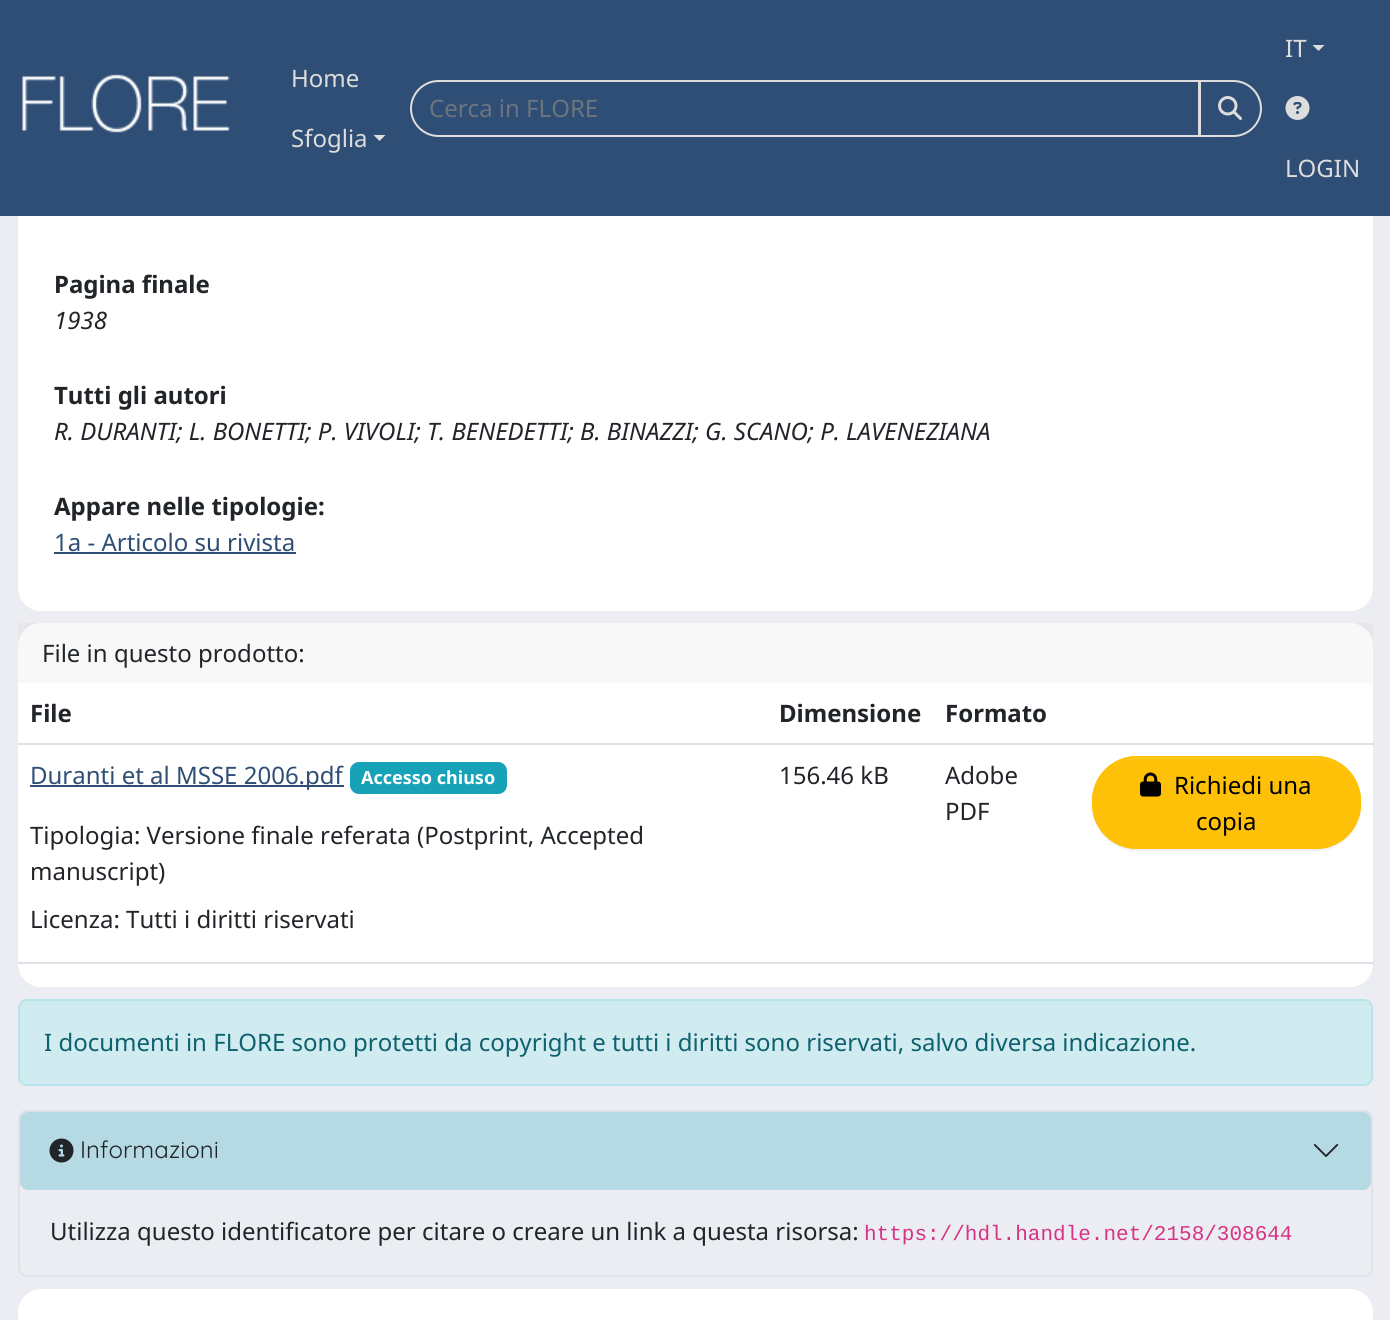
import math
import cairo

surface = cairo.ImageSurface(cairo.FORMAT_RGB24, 1390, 1320)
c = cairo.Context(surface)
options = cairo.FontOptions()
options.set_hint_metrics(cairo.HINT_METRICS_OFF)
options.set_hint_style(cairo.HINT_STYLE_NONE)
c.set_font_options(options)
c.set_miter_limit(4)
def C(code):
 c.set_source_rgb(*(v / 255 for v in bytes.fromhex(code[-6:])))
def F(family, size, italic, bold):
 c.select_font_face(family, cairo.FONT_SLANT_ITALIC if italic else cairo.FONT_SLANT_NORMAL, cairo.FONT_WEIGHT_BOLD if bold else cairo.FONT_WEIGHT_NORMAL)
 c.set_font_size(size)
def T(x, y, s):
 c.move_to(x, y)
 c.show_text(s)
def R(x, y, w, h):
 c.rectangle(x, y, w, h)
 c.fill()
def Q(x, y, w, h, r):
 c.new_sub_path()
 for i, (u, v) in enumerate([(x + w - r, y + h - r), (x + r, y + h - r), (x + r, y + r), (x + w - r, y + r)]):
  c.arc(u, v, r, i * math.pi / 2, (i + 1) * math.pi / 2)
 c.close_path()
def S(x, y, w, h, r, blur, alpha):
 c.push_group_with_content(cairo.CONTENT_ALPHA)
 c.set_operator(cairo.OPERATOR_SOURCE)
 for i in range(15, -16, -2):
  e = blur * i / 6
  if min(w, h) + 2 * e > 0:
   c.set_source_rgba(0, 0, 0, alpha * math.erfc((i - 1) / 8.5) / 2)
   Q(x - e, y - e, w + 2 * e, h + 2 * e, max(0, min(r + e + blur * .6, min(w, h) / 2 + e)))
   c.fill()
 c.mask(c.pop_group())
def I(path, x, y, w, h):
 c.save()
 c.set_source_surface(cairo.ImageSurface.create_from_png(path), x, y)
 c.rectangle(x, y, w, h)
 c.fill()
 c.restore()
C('ecedf2')
c.paint()
C('ffffff')
Q(18,-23,1355,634,23)
c.fill()
C('2f4e75')
R(0,0,1390,216)
I('1.png',22,74,208,59)
F('Noto Sans',24,0,0)
C('dddddd')
T(291,87,'Home')
T(291,147,'Sfoglia')
c.new_path()
c.move_to(373.5,135)
c.line_to(385.5,135)
c.line_to(379.5,141)
c.close_path()
c.fill()
c.new_path()
c.move_to(438.5,81)
c.line_to(1199,81)
c.line_to(1199,136)
c.line_to(438.5,136)
c.curve_to(423.5,136,411,123.5,411,108.5)
c.curve_to(411,93.5,423.5,81,438.5,81)
c.close_path()
c.stroke()
C('6c757d')
T(429,117,'Cerca in FLORE')
C('000000')
S(1199,81,63,57,28.5,1,.07)
C('2f4e75')
c.new_path()
c.move_to(1199,80)
c.line_to(1233.5,80)
c.curve_to(1249,80,1262,93,1262,108.5)
c.curve_to(1262,124,1249,137,1233.5,137)
c.line_to(1199,137)
c.close_path()
c.fill()
C('4e698a')
c.new_path()
c.move_to(1200,82)
c.line_to(1233,82)
c.curve_to(1248,82,1259,94,1260,109)
c.line_to(1260,108)
c.curve_to(1260,93,1248,81,1233,81)
c.line_to(1200,81)
c.close_path()
c.fill()
c.new_path()
c.move_to(1200,81)
c.line_to(1233.5,81)
c.curve_to(1248.5,81,1261,93.5,1261,108.5)
c.curve_to(1261,123.5,1248.5,136,1233.5,136)
c.line_to(1200,136)
c.close_path()
C('dddddd')
c.stroke()
I('2.png',1218,96,24,24)
T(1285,57,'IT')
c.new_path()
c.move_to(1312.5,45)
c.line_to(1324.5,45)
c.line_to(1318.5,51)
c.close_path()
c.fill()
I('3.png',1285,96,25,24)
T(1285,177,'LOGIN')
F('Noto Sans',24,0,1)
C('212529')
T(54,293,'Pagina finale')
F('Noto Sans',24,1,0)
T(54,329,'1938')
F('Noto Sans',24,0,1)
T(54,404,'Tutti gli autori')
F('Noto Sans',24,1,0)
T(54,440,'R. DURANTI; L. BONETTI; P. VIVOLI; T. BENEDETTI; B. BINAZZI; G. SCANO; P. LAVENEZIANA')
F('Noto Sans',24,0,1)
T(54,515,'Appare nelle tipologie:')
F('Noto Sans',24,0,0)
C('2f4e75')
T(54,551,'1a - Articolo su rivista')
R(54,552,242,2)
C('ffffff')
Q(18,623,1355,364,23)
c.fill()
c.set_source_rgba(0,0,0,0.03)
R(18,623,1355,60)
C('212529')
T(42,662,'File in questo prodotto:')
F('Noto Sans',24,0,1)
T(30,722,'File')
T(779,722,'Dimensione')
T(945,722,'Formato')
C('dee2e6')
R(18,743,1356,2)
C('2f4e75')
R(30,785,314,2)
F('Noto Sans',24,0,0)
T(30,784,'Duranti et al MSSE 2006.pdf')
C('17a2b8')
Q(350,762,157,32,9)
c.fill()
F('Noto Sans',18,0,1)
C('ffffff')
T(361,784,'Accesso chiuso')
F('Noto Sans',24,0,0)
C('212529')
T(30,844,'Tipologia: Versione finale referata (Postprint, Accepted')
T(30,880,'manuscript)')
T(30,928,'Licenza: Tutti i diritti riservati')
T(779,784,'156.46 kB')
T(945,784,'Adobe')
T(945,820,'PDF')
C('dee2e6')
R(18,962,1356,2)
C('000000')
S(1092,758,269,93,45,1,.07)
C('ffc107')
Q(1092,756,269,93,45)
c.fill()
C('ffca2c')
c.new_path()
c.move_to(1137,759)
c.line_to(1316,759)
c.curve_to(1335,759,1350,770,1356,787)
c.curve_to(1350,770,1334,758,1315,758)
c.line_to(1138,758)
c.curve_to(1119,758,1103,770,1097,787)
c.curve_to(1103,770,1118,759,1137,759)
c.close_path()
c.fill()
Q(1093,757,267,91,44)
C('ffc107')
c.stroke()
I('4.png',1140,772,21,25)
C('000000')
T(1174,794,'Richiedi una')
T(1196,830,'copia')
C('d1ecf1')
Q(19,1000,1353,85,8)
c.fill_preserve()
C('b9e3ea')
c.stroke()
C('0e616e')
T(44,1051,'I documenti in FLORE sono protetti da copyright e tutti i diritti sono riservati, salvo diversa indicazione.')
Q(19,1111,1353,165,8)
C('dee2e6')
c.stroke()
c.set_source_rgba(0.09,0.635,0.722,0.25)
Q(20,1112,1351,78,8)
c.fill()
I('5.png',49,1138,25,25)
F('Quicksand Light',24,0,0)
C('212529')
T(80,1158,'Informazioni')
I('6.png',1313,1144,26,13)
F('Noto Sans',24,0,0)
T(50,1240,'Utilizza questo identificatore per citare o creare un link a questa risorsa:')
F('Liberation Mono',21,0,0)
C('d63384')
T(864,1240,'https://hdl.handle.net/2158/308644')
C('ffffff')
c.new_path()
c.move_to(41,1289)
c.line_to(1350,1289)
c.curve_to(1362.5,1289,1373,1299.5,1373,1312)
c.line_to(1373,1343)
c.line_to(18,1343)
c.line_to(18,1312)
c.curve_to(18,1299.5,28.5,1289,41,1289)
c.close_path()
c.fill()
surface.write_to_png('o.png')
